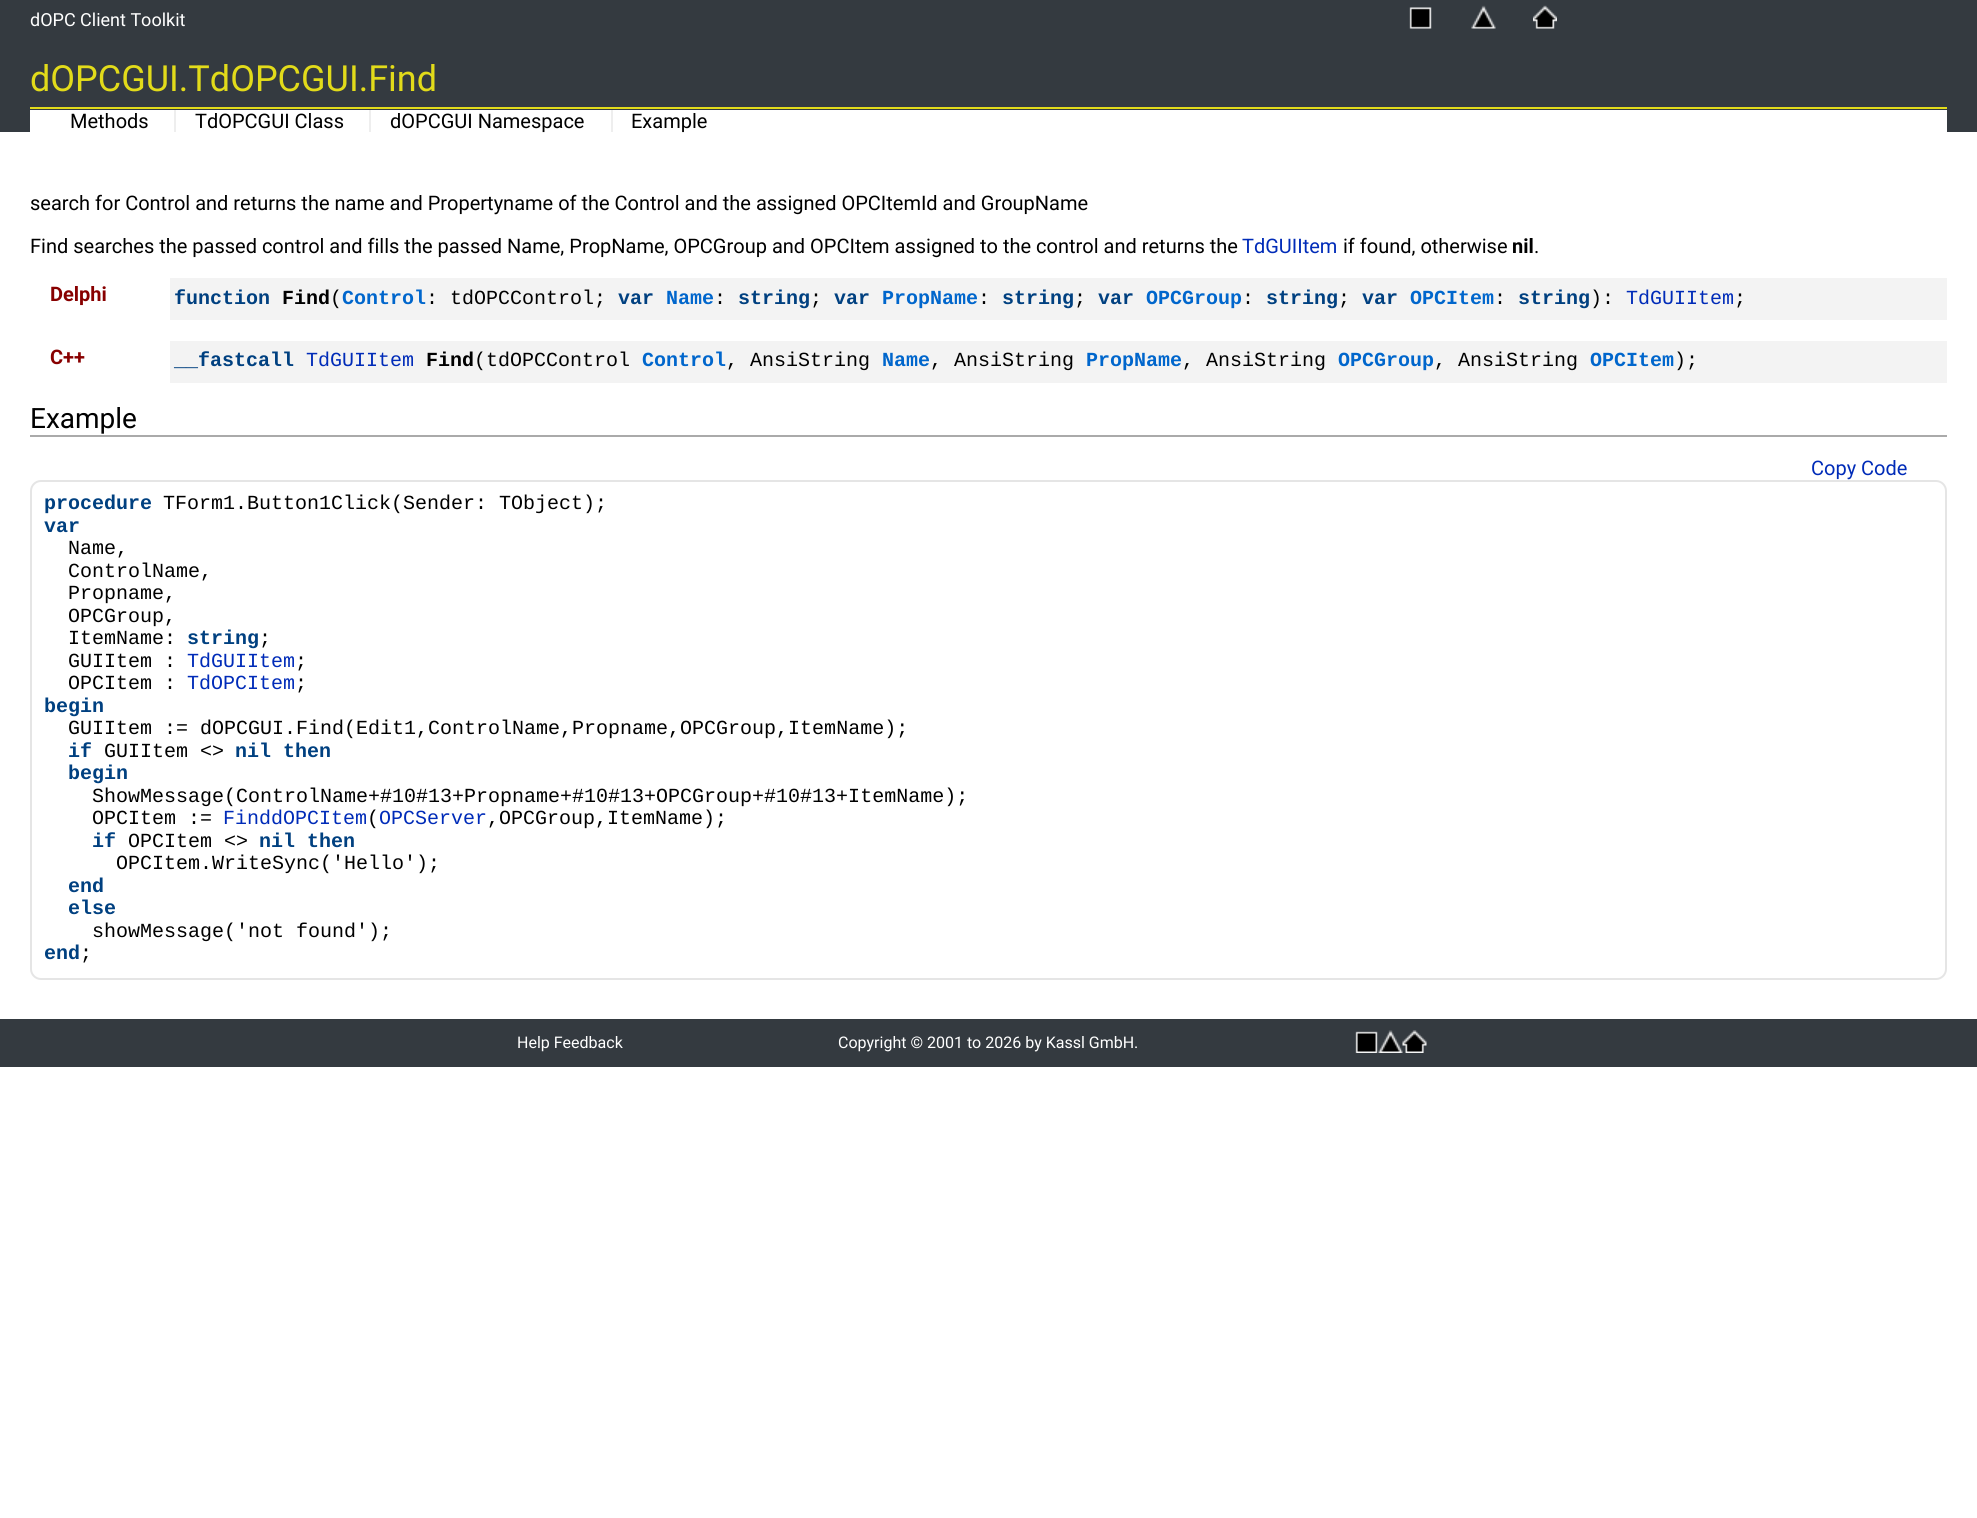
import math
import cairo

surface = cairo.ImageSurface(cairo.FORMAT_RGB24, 1977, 1518)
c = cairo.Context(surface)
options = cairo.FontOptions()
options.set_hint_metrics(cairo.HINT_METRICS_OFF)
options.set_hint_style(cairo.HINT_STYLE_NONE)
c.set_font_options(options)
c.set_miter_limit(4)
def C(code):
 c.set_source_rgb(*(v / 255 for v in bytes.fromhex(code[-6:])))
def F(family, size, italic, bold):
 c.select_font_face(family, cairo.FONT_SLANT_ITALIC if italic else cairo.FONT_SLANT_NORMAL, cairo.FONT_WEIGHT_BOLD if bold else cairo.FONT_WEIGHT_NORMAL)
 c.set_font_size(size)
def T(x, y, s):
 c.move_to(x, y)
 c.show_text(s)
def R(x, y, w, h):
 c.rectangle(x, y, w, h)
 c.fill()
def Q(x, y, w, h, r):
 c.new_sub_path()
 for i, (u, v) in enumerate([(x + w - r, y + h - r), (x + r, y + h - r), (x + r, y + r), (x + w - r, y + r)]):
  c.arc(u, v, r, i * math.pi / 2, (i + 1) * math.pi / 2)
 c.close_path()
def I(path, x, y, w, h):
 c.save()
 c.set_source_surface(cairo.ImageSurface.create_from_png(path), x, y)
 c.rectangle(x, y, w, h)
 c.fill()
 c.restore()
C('ffffff')
c.paint()
C('343a40')
R(0,0,1977,132)
F('Roboto',18,0,0)
C('ffffff')
T(30,26,'dOPC Client Toolkit')
I('1.png',1409,7,23,22)
I('2.png',1471,5,25,24)
I('3.png',1533,5,24,24)
C('e2db1a')
R(30,107,1917,2)
F('Roboto',36,0,0)
T(30,91,'dOPCGUI.TdOPCGUI.Find')
C('ffffff')
R(30,110,1917,22)
F('Roboto',20,0,0)
C('000000')
T(70,128,'Methods')
T(195,128,'TdOPCGUI Class')
C('eeeeee')
R(174,110,2,22)
C('000000')
T(390,128,'dOPCGUI Namespace')
C('eeeeee')
R(369,110,2,22)
C('000000')
T(631,128,'Example')
C('eeeeee')
R(611,110,2,22)
C('000000')
T(30,210,'search for Control and returns the name and Propertyname of the Control and the assigned OPCItemId and GroupName')
T(30,253,'Find searches the passed control and fills the passed Name, PropName, OPCGroup and OPCItem assigned to the control and returns the')
C('002bb8')
T(1242,253,'TdGUIItem')
C('000000')
T(1343,253,'if found, otherwise')
F('Roboto',20,0,1)
T(1512,253,'nil')
F('Roboto',20,0,0)
T(1534,253,'.')
F('Roboto',20,0,1)
C('880000')
T(50,301,'Delphi')
C('f3f3f3')
R(170,278,1777,42)
F('Liberation Mono',20,0,1)
C('004080')
T(174,304,'function')
C('000000')
T(282,304,'Find')
F('Liberation Mono',20,0,0)
T(330,304,'(')
F('Liberation Mono',20,0,1)
C('0066cc')
T(342,304,'Control')
F('Liberation Mono',20,0,0)
C('000000')
T(426,304,': tdOPCControl;')
F('Liberation Mono',20,0,1)
C('004080')
T(618,304,'var')
C('0066cc')
T(666,304,'Name')
F('Liberation Mono',20,0,0)
C('000000')
T(714,304,':')
F('Liberation Mono',20,0,1)
C('004080')
T(738,304,'string')
F('Liberation Mono',20,0,0)
C('000000')
T(810,304,';')
F('Liberation Mono',20,0,1)
C('004080')
T(834,304,'var')
C('0066cc')
T(882,304,'PropName')
F('Liberation Mono',20,0,0)
C('000000')
T(978,304,':')
F('Liberation Mono',20,0,1)
C('004080')
T(1002,304,'string')
F('Liberation Mono',20,0,0)
C('000000')
T(1074,304,';')
F('Liberation Mono',20,0,1)
C('004080')
T(1098,304,'var')
C('0066cc')
T(1146,304,'OPCGroup')
F('Liberation Mono',20,0,0)
C('000000')
T(1242,304,':')
F('Liberation Mono',20,0,1)
C('004080')
T(1266,304,'string')
F('Liberation Mono',20,0,0)
C('000000')
T(1338,304,';')
F('Liberation Mono',20,0,1)
C('004080')
T(1362,304,'var')
C('0066cc')
T(1410,304,'OPCItem')
F('Liberation Mono',20,0,0)
C('000000')
T(1494,304,':')
F('Liberation Mono',20,0,1)
C('004080')
T(1518,304,'string')
F('Liberation Mono',20,0,0)
C('000000')
T(1590,304,'):')
C('002bb8')
T(1626,304,'TdGUIItem')
C('000000')
T(1734,304,';')
F('Roboto',20,0,1)
C('880000')
T(50,364,'C++')
C('f3f3f3')
R(170,341,1777,42)
F('Liberation Mono',20,0,1)
C('004080')
T(174,366,'__fastcall')
F('Liberation Mono',20,0,0)
C('002bb8')
T(306,366,'TdGUIItem')
F('Liberation Mono',20,0,1)
C('000000')
T(426,366,'Find')
F('Liberation Mono',20,0,0)
T(474,366,'(tdOPCControl')
F('Liberation Mono',20,0,1)
C('0066cc')
T(642,366,'Control')
F('Liberation Mono',20,0,0)
C('000000')
T(726,366,', AnsiString')
F('Liberation Mono',20,0,1)
C('0066cc')
T(882,366,'Name')
F('Liberation Mono',20,0,0)
C('000000')
T(930,366,', AnsiString')
F('Liberation Mono',20,0,1)
C('0066cc')
T(1086,366,'PropName')
F('Liberation Mono',20,0,0)
C('000000')
T(1182,366,', AnsiString')
F('Liberation Mono',20,0,1)
C('0066cc')
T(1338,366,'OPCGroup')
F('Liberation Mono',20,0,0)
C('000000')
T(1434,366,', AnsiString')
F('Liberation Mono',20,0,1)
C('0066cc')
T(1590,366,'OPCItem')
F('Liberation Mono',20,0,0)
C('000000')
T(1674,366,');')
C('aaaaaa')
R(30,435,1917,2)
F('Roboto',28,0,0)
C('000000')
T(30,428,'Example')
F('Roboto',20,0,0)
C('002bb8')
T(1811,475,'Copy Code')
Q(31,481,1915,498,10)
C('e5e5e5')
c.stroke()
F('Liberation Mono',20,0,1)
C('004080')
T(44,509,'procedure')
F('Liberation Mono',20,0,0)
C('000000')
T(163,509,'TForm1.Button1Click(Sender: TObject);')
F('Liberation Mono',20,0,1)
C('004080')
T(44,532,'var')
F('Liberation Mono',20,0,0)
C('000000')
T(68,554,'Name,')
T(68,577,'ControlName,')
T(68,599,'Propname,')
T(68,622,'OPCGroup,')
T(68,644,'ItemName:')
F('Liberation Mono',20,0,1)
C('004080')
T(187,644,'string')
F('Liberation Mono',20,0,0)
C('000000')
T(259,644,';')
T(68,667,'GUIItem :')
C('002bb8')
T(187,667,'TdGUIItem')
C('000000')
T(295,667,';')
T(68,689,'OPCItem :')
C('002bb8')
T(187,689,'TdOPCItem')
C('000000')
T(295,689,';')
F('Liberation Mono',20,0,1)
C('004080')
T(44,712,'begin')
F('Liberation Mono',20,0,0)
C('000000')
T(68,734,'GUIItem := dOPCGUI.Find(Edit1,ControlName,Propname,OPCGroup,ItemName);')
F('Liberation Mono',20,0,1)
C('004080')
T(68,757,'if')
F('Liberation Mono',20,0,0)
C('000000')
T(104,757,'GUIItem <>')
F('Liberation Mono',20,0,1)
C('004080')
T(235,757,'nil then')
T(68,779,'begin')
F('Liberation Mono',20,0,0)
C('000000')
T(92,802,'ShowMessage(ControlName+#10#13+Propname+#10#13+OPCGroup+#10#13+ItemName);')
C('002bb8')
T(223,824,'FinddOPCItem OPCServer')
C('000000')
T(92,824,'OPCItem :=')
T(367,824,'(')
T(487,824,',OPCGroup,ItemName);')
F('Liberation Mono',20,0,1)
C('004080')
T(92,847,'if')
F('Liberation Mono',20,0,0)
C('000000')
T(128,847,'OPCItem <>')
F('Liberation Mono',20,0,1)
C('004080')
T(259,847,'nil then')
F('Liberation Mono',20,0,0)
C('000000')
T(116,869,'OPCItem.WriteSync(\'Hello\');')
F('Liberation Mono',20,0,1)
C('004080')
T(68,892,'end')
T(68,914,'else')
F('Liberation Mono',20,0,0)
C('000000')
T(92,937,'showMessage(\'not found\');')
F('Liberation Mono',20,0,1)
C('004080')
T(44,959,'end')
F('Liberation Mono',20,0,0)
C('000000')
T(80,959,';')
C('343a40')
R(0,1019,1977,48)
F('Roboto',16,0,0)
C('ffffff')
T(517,1048,'Help Feedback')
T(838,1048,'Copyright © 2001 to 2026 by Kassl GmbH.')
I('4.png',1355,1031,23,22)
I('5.png',1378,1030,25,23)
I('6.png',1402,1030,25,23)
surface.write_to_png('o.png')
